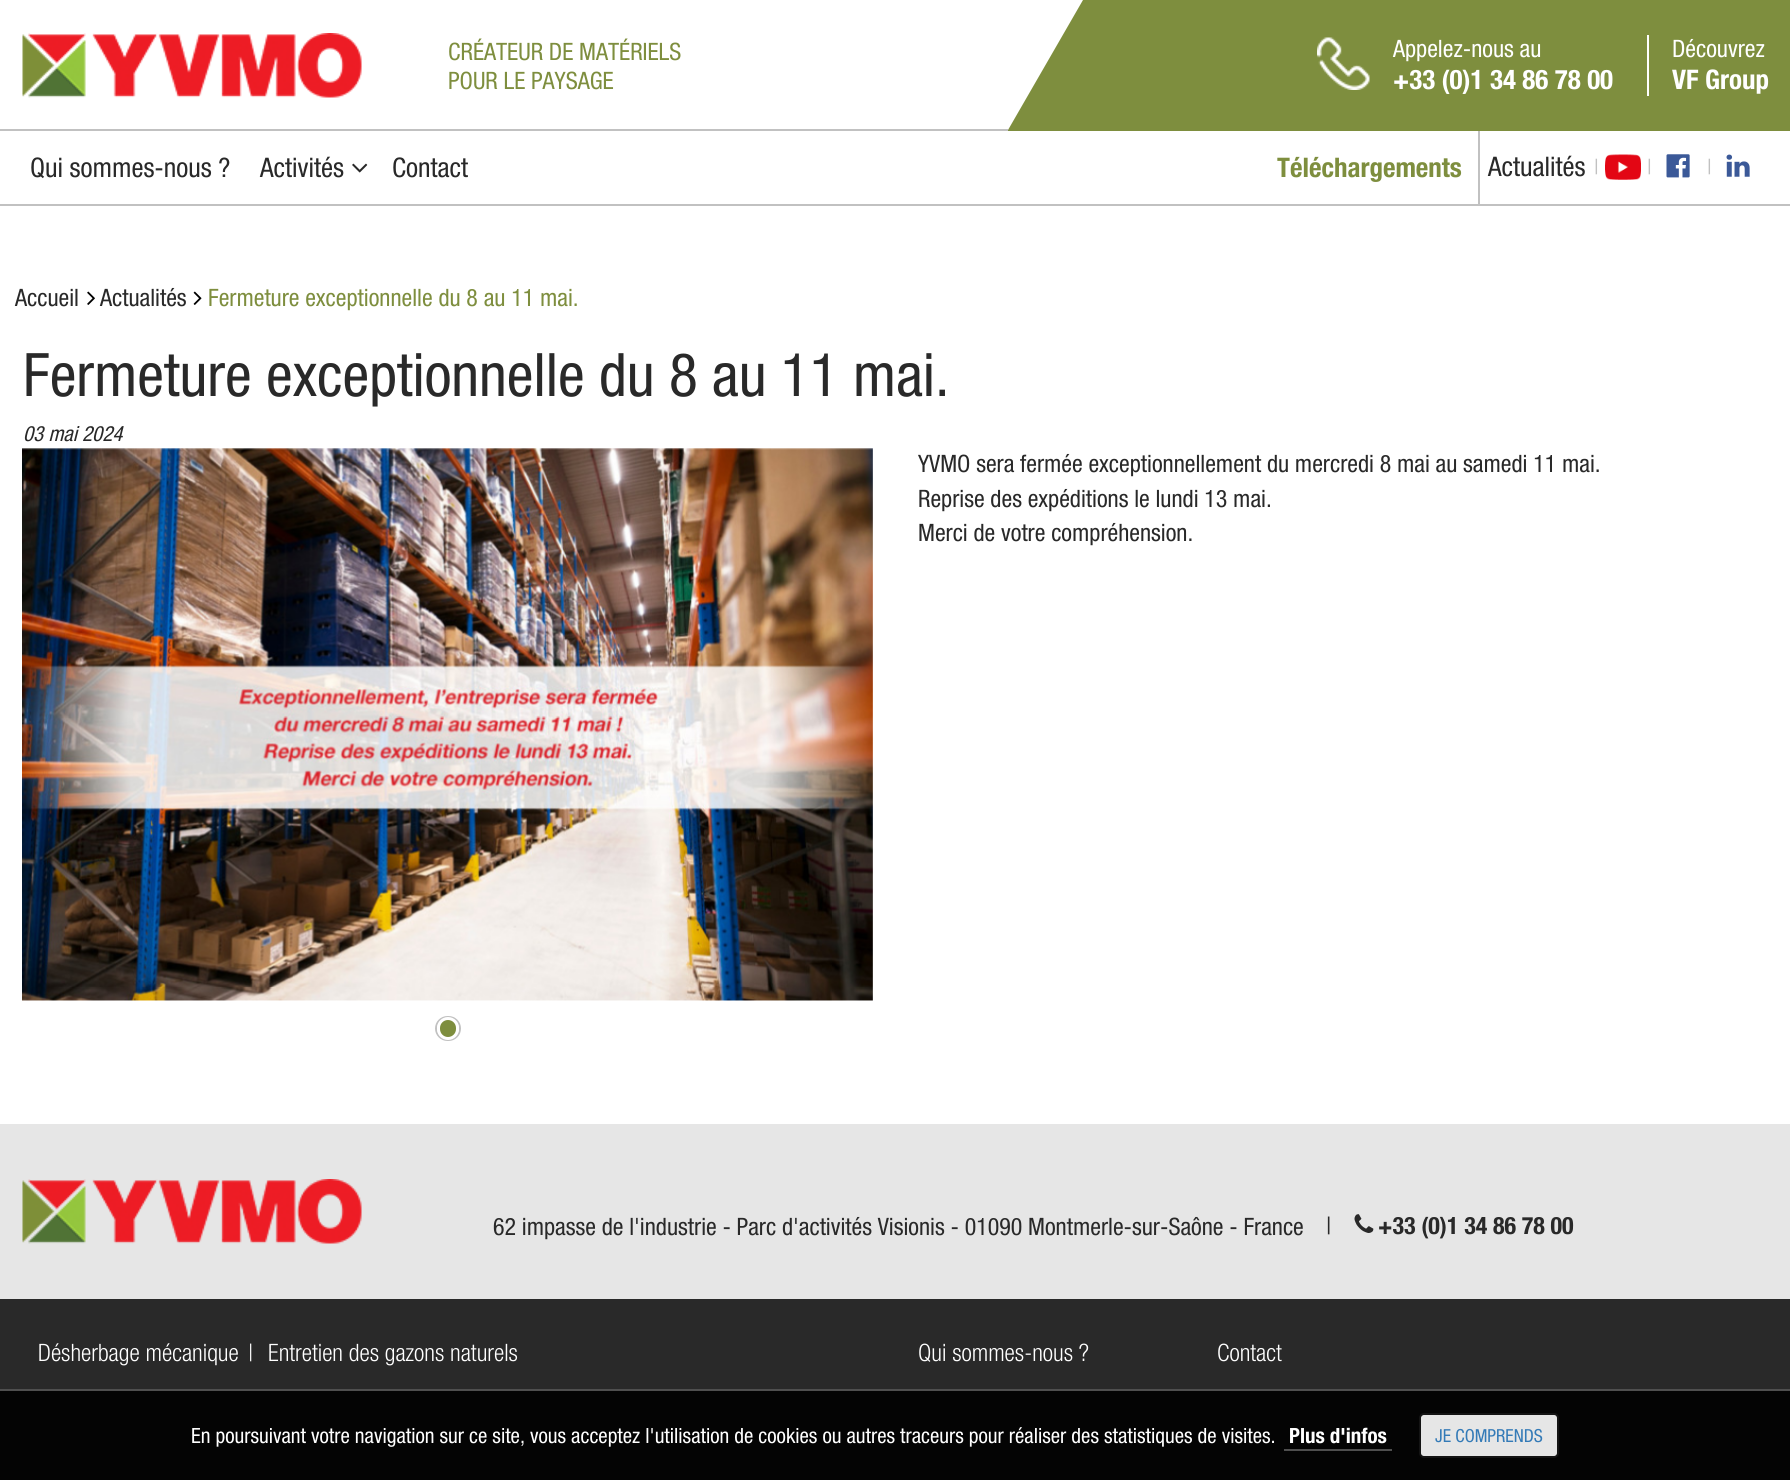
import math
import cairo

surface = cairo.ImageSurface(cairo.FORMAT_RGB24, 1790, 1480)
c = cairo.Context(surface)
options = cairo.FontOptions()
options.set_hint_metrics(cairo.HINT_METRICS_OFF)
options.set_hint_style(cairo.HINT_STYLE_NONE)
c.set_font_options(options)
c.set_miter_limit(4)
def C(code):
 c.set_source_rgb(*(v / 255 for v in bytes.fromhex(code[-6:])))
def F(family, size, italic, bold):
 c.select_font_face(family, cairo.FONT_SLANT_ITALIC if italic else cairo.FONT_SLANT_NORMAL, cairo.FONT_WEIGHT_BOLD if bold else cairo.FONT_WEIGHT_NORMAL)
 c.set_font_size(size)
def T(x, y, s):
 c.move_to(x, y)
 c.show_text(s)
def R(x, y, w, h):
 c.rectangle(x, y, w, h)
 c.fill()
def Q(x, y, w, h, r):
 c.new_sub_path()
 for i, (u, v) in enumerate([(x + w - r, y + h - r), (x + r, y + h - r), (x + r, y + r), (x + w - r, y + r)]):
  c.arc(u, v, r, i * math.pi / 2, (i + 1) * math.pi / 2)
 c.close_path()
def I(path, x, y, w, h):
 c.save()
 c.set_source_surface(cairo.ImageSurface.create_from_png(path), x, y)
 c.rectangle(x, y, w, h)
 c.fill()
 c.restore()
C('292929')
c.paint()
C('ffffff')
R(0,0,1790,1124)
C('c1c1c1')
R(0,129,1008,2)
C('7e8e3e')
R(1008,0,782,131)
C('ffffff')
c.new_path()
c.move_to(1008,0)
c.line_to(1083,0)
c.line_to(1008,130)
c.close_path()
c.fill()
I('1.png',22,33,340,65)
F('Helvetica Neue',24,0,0)
C('7e8e3e')
T(448,60,'CRÉATEUR DE MATÉRIELS')
T(448,89,'POUR LE PAYSAGE')
I('2.png',1317,37,53,53)
C('ffffff')
T(1393,57,'Appelez-nous au')
F('Helvetica Neue',27,0,1)
T(1393,89,'+33 (0)1 34 86 78 00')
R(1647,35,2,61)
F('Helvetica Neue',24,0,0)
T(1672,57,'Découvrez')
F('Helvetica Neue',27,0,1)
T(1672,89,'VF Group')
C('c1c1c1')
R(0,204,1790,2)
F('Helvetica Neue',27,0,0)
C('292929')
T(30,177,'Qui sommes-nous ?')
T(260,177,'Activités')
I('3.png',352,163,16,10)
T(392,177,'Contact')
F('Helvetica Neue',27,0,1)
C('7e8e3e')
T(1277,177,'Téléchargements')
C('c1c1c1')
R(1478,131,2,75)
F('Helvetica Neue',27,0,0)
C('292929')
T(1488,176,'Actualités')
F('Helvetica Neue',21,0,0)
C('c1c1c1')
T(1594,174,'|')
I('4.png',1605,154,36,26)
T(1647,174,'|')
I('5.png',1666,154,24,24)
T(1707,174,'|')
I('6.png',1726,154,24,23)
F('Helvetica Neue',24,0,0)
C('292929')
T(15,306,'Accueil')
I('7.png',87,291,8,14)
T(100,306,'Actualités')
I('8.png',193,291,9,14)
C('7e8e3e')
T(208,306,'Fermeture exceptionnelle du 8 au 11 mai.')
F('Helvetica Neue',60,0,0)
C('292929')
T(23,396,'Fermeture exceptionnelle du 8 au 11 mai.')
F('Helvetica Neue',21,1,0)
T(23,441,'03 mai 2024')
I('9.png',22,448,851,553)
Q(436,1017,24,23,11.5)
C('c1c1c1')
c.stroke()
C('7e8e3e')
Q(438.5,1018.5,19,20,9.5)
c.fill_preserve()
C('ffffff')
c.set_line_width(3)
c.stroke()
F('Helvetica Neue',24,0,0)
C('292929')
T(918,472,'YVMO sera fermée exceptionnellement du mercredi 8 mai au samedi 11 mai.')
T(918,507,'Reprise des expéditions le lundi 13 mai.')
T(918,541,'Merci de votre compréhension.')
C('e6e6e6')
R(0,1124,1790,175)
I('10.png',22,1179,340,65)
C('292929')
T(493,1235,'62 impasse de l\'industrie - Parc d\'activités Visionis - 01090 Montmerle-sur-Saône - France')
T(1326,1234,'|')
I('11.png',1354,1214,20,19)
F('Helvetica Neue',24,0,1)
T(1378,1234,'+33 (0)1 34 86 78 00')
F('Helvetica Neue Light',24,0,0)
C('ffffff')
T(38,1361,'Désherbage mécanique')
T(248,1361,'|')
T(268,1361,'Entretien des gazons naturels')
T(918,1361,'Qui sommes-nous ?')
T(1217,1361,'Contact')
c.set_source_rgba(0,0,0,0.9)
R(0,1389,1790,91)
c.set_source_rgba(1,1,1,0.3)
R(0,1389,1790,2)
F('Helvetica Neue',21,0,0)
C('ffffff')
T(191,1443,'En poursuivant votre navigation sur ce site, vous acceptez l\'utilisation de cookies ou autres traceurs pour réaliser des statistiques de visites.')
F('Helvetica Neue',21,0,1)
T(1289,1443,'Plus d\'infos')
C('4f4f4f')
R(1284,1449,108,2)
C('e6e6e6')
Q(1420,1414,138,43,4)
c.fill_preserve()
C('141414')
c.set_line_width(2)
c.stroke()
F('Helvetica Neue',18,0,0)
C('337ab7')
T(1435,1442,'JE COMPRENDS')
surface.write_to_png('o.png')
